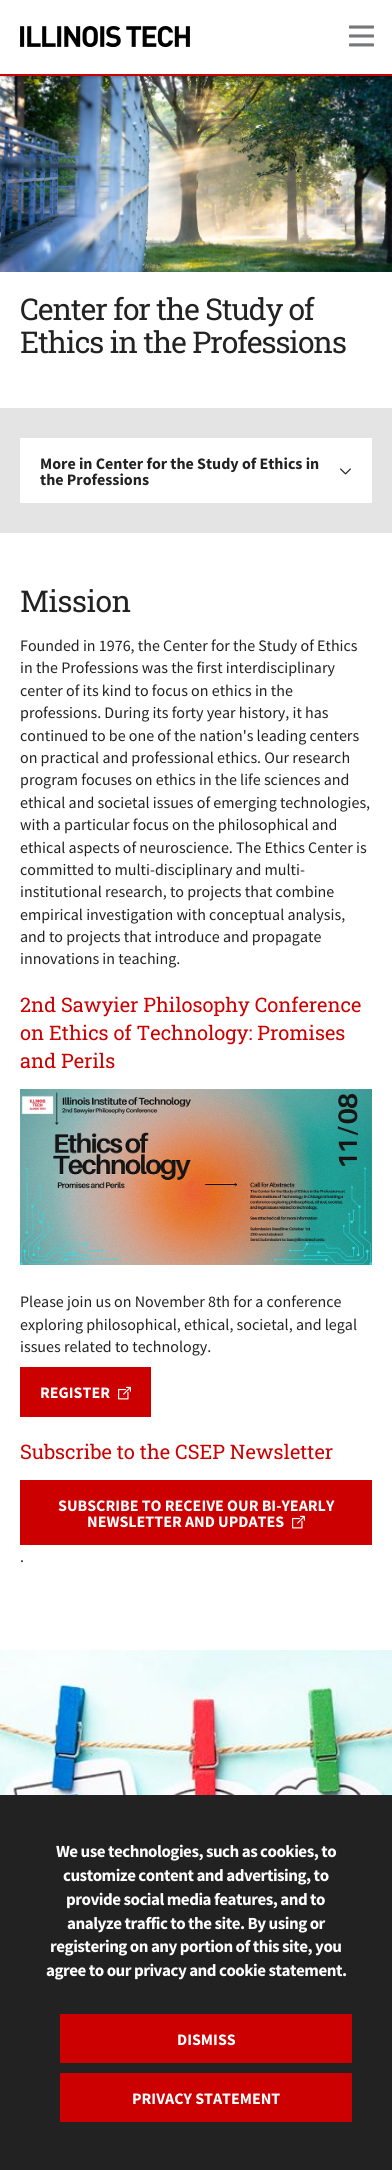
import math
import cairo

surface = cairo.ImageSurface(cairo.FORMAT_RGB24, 392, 2170)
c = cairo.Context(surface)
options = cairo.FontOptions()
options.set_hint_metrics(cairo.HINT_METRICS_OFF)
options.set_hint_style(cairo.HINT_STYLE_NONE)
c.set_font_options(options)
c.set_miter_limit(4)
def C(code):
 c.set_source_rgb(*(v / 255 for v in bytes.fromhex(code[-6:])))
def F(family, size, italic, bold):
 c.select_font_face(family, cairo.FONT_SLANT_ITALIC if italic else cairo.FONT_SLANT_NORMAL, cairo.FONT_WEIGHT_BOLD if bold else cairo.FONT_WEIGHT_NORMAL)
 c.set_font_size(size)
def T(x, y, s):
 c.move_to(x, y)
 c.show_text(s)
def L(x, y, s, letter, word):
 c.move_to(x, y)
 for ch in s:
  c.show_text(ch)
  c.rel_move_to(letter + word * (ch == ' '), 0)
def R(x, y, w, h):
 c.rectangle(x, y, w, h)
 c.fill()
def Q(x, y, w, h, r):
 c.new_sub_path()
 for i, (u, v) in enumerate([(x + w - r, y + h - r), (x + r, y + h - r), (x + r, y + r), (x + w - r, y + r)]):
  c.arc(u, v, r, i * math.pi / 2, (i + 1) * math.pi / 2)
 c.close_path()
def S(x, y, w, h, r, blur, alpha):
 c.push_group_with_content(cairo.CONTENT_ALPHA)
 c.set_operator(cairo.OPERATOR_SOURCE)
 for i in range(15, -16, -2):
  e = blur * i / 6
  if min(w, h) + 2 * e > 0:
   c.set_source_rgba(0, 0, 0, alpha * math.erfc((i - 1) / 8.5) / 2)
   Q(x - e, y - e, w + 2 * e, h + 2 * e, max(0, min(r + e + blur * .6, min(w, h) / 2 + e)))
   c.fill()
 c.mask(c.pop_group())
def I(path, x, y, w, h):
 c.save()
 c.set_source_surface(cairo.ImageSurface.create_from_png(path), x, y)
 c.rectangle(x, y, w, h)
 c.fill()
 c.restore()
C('ffffff')
c.paint()
I('3.png',0,76,392,196)
c.save()
c.rectangle(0,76,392,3)
c.clip()
C('000000')
S(0,0,392,76,0,2,.3)
c.restore()
C('cc0000')
R(0,74,392,2)
I('1.png',20,26,170,21)
I('2.png',349,25,25,22)
F('Roboto Slab',30,0,0)
C('222222')
L(20,320,'Center for the Study of',-1,0)
L(20,353,'Ethics in the Professions',-1,0)
C('e4e4e4')
R(0,408,392,125)
C('ffffff')
R(20,438,352,65)
F('Source Sans Pro',16,0,1)
C('222222')
T(40,469,'More in Center for the Study of Ethics in')
I('4.png',340,468,11,7)
T(40,485,'the Professions')
F('Roboto Slab',30,0,0)
L(20,612,'Mission',-.5,0)
F('Source Sans Pro',16,0,0)
T(20,651,'Founded in 1976, the Center for the Study of Ethics')
T(20,673,'in the Professions was the first interdisciplinary')
T(20,696,'center of its kind to focus on ethics in the')
T(20,718,'professions. During its forty year history, it has')
T(20,741,'continued to be one of the nation\'s leading centers')
T(20,763,'on practical and professional ethics. Our research')
T(20,785,'program focuses on ethics in the life sciences and')
T(20,808,'ethical and societal issues of emerging technologies,')
T(20,830,'with a particular focus on the philosophical and')
T(20,853,'ethical aspects of neuroscience. The Ethics Center is')
T(20,875,'committed to multi-disciplinary and multi-')
T(20,897,'institutional research, to projects that combine')
T(20,920,'empirical investigation with conceptual analysis,')
T(20,942,'and to projects that introduce and propagate')
T(20,964,'innovations in teaching.')
F('Roboto Slab',20,0,0)
C('cc0000')
T(20,1012,'2nd Sawyier Philosophy Conference')
T(20,1040,'on Ethics of Technology: Promises')
T(20,1068,'and Perils')
I('5.png',20,1089,352,176)
F('Source Sans Pro',16,0,0)
C('222222')
T(20,1307,'Please join us on November 8th for a conference')
T(20,1330,'exploring philosophical, ethical, societal, and legal')
T(20,1352,'issues related to technology.')
C('cc0000')
R(20,1367,131,50)
F('Source Sans Pro',16,0,1)
C('ffffff')
T(40,1398,'REGISTER')
I('6.png',118,1386,13,14)
F('Roboto Slab',20,0,0)
C('cc0000')
T(20,1459,'Subscribe to the CSEP Newsletter')
R(20,1480,352,65)
F('Source Sans Pro',16,0,1)
C('ffffff')
T(58,1511,'SUBSCRIBE TO RECEIVE OUR BI-YEARLY')
T(87,1527,'NEWSLETTER AND UPDATES')
I('6.png',292,1515,13,14)
F('Source Sans Pro',16,0,0)
C('222222')
T(20,1562,'.')
I('7.png',0,1650,392,145)
R(0,1795,392,375)
F('Source Sans Pro',17,0,1)
C('ffffff')
L(56,1857,'We use technologies, such as cookies, to',-.5,0)
L(63,1881,'customize content and advertising, to',-.5,0)
L(66,1905,'provide social media features, and to',-.5,0)
L(67,1929,'analyze traffic to the site. By using or',-.5,0)
L(50,1952,'registering on any portion of this site, you',-.5,0)
L(46,1976,'agree to our privacy and cookie statement.',-.5,0)
C('cc0000')
R(60,2014,292,49)
F('Source Sans Pro',16,0,1)
C('ffffff')
T(177,2045,'DISMISS')
C('cc0000')
R(60,2073,292,49)
C('ffffff')
T(132,2104,'PRIVACY STATEMENT')
surface.write_to_png('o.png')
